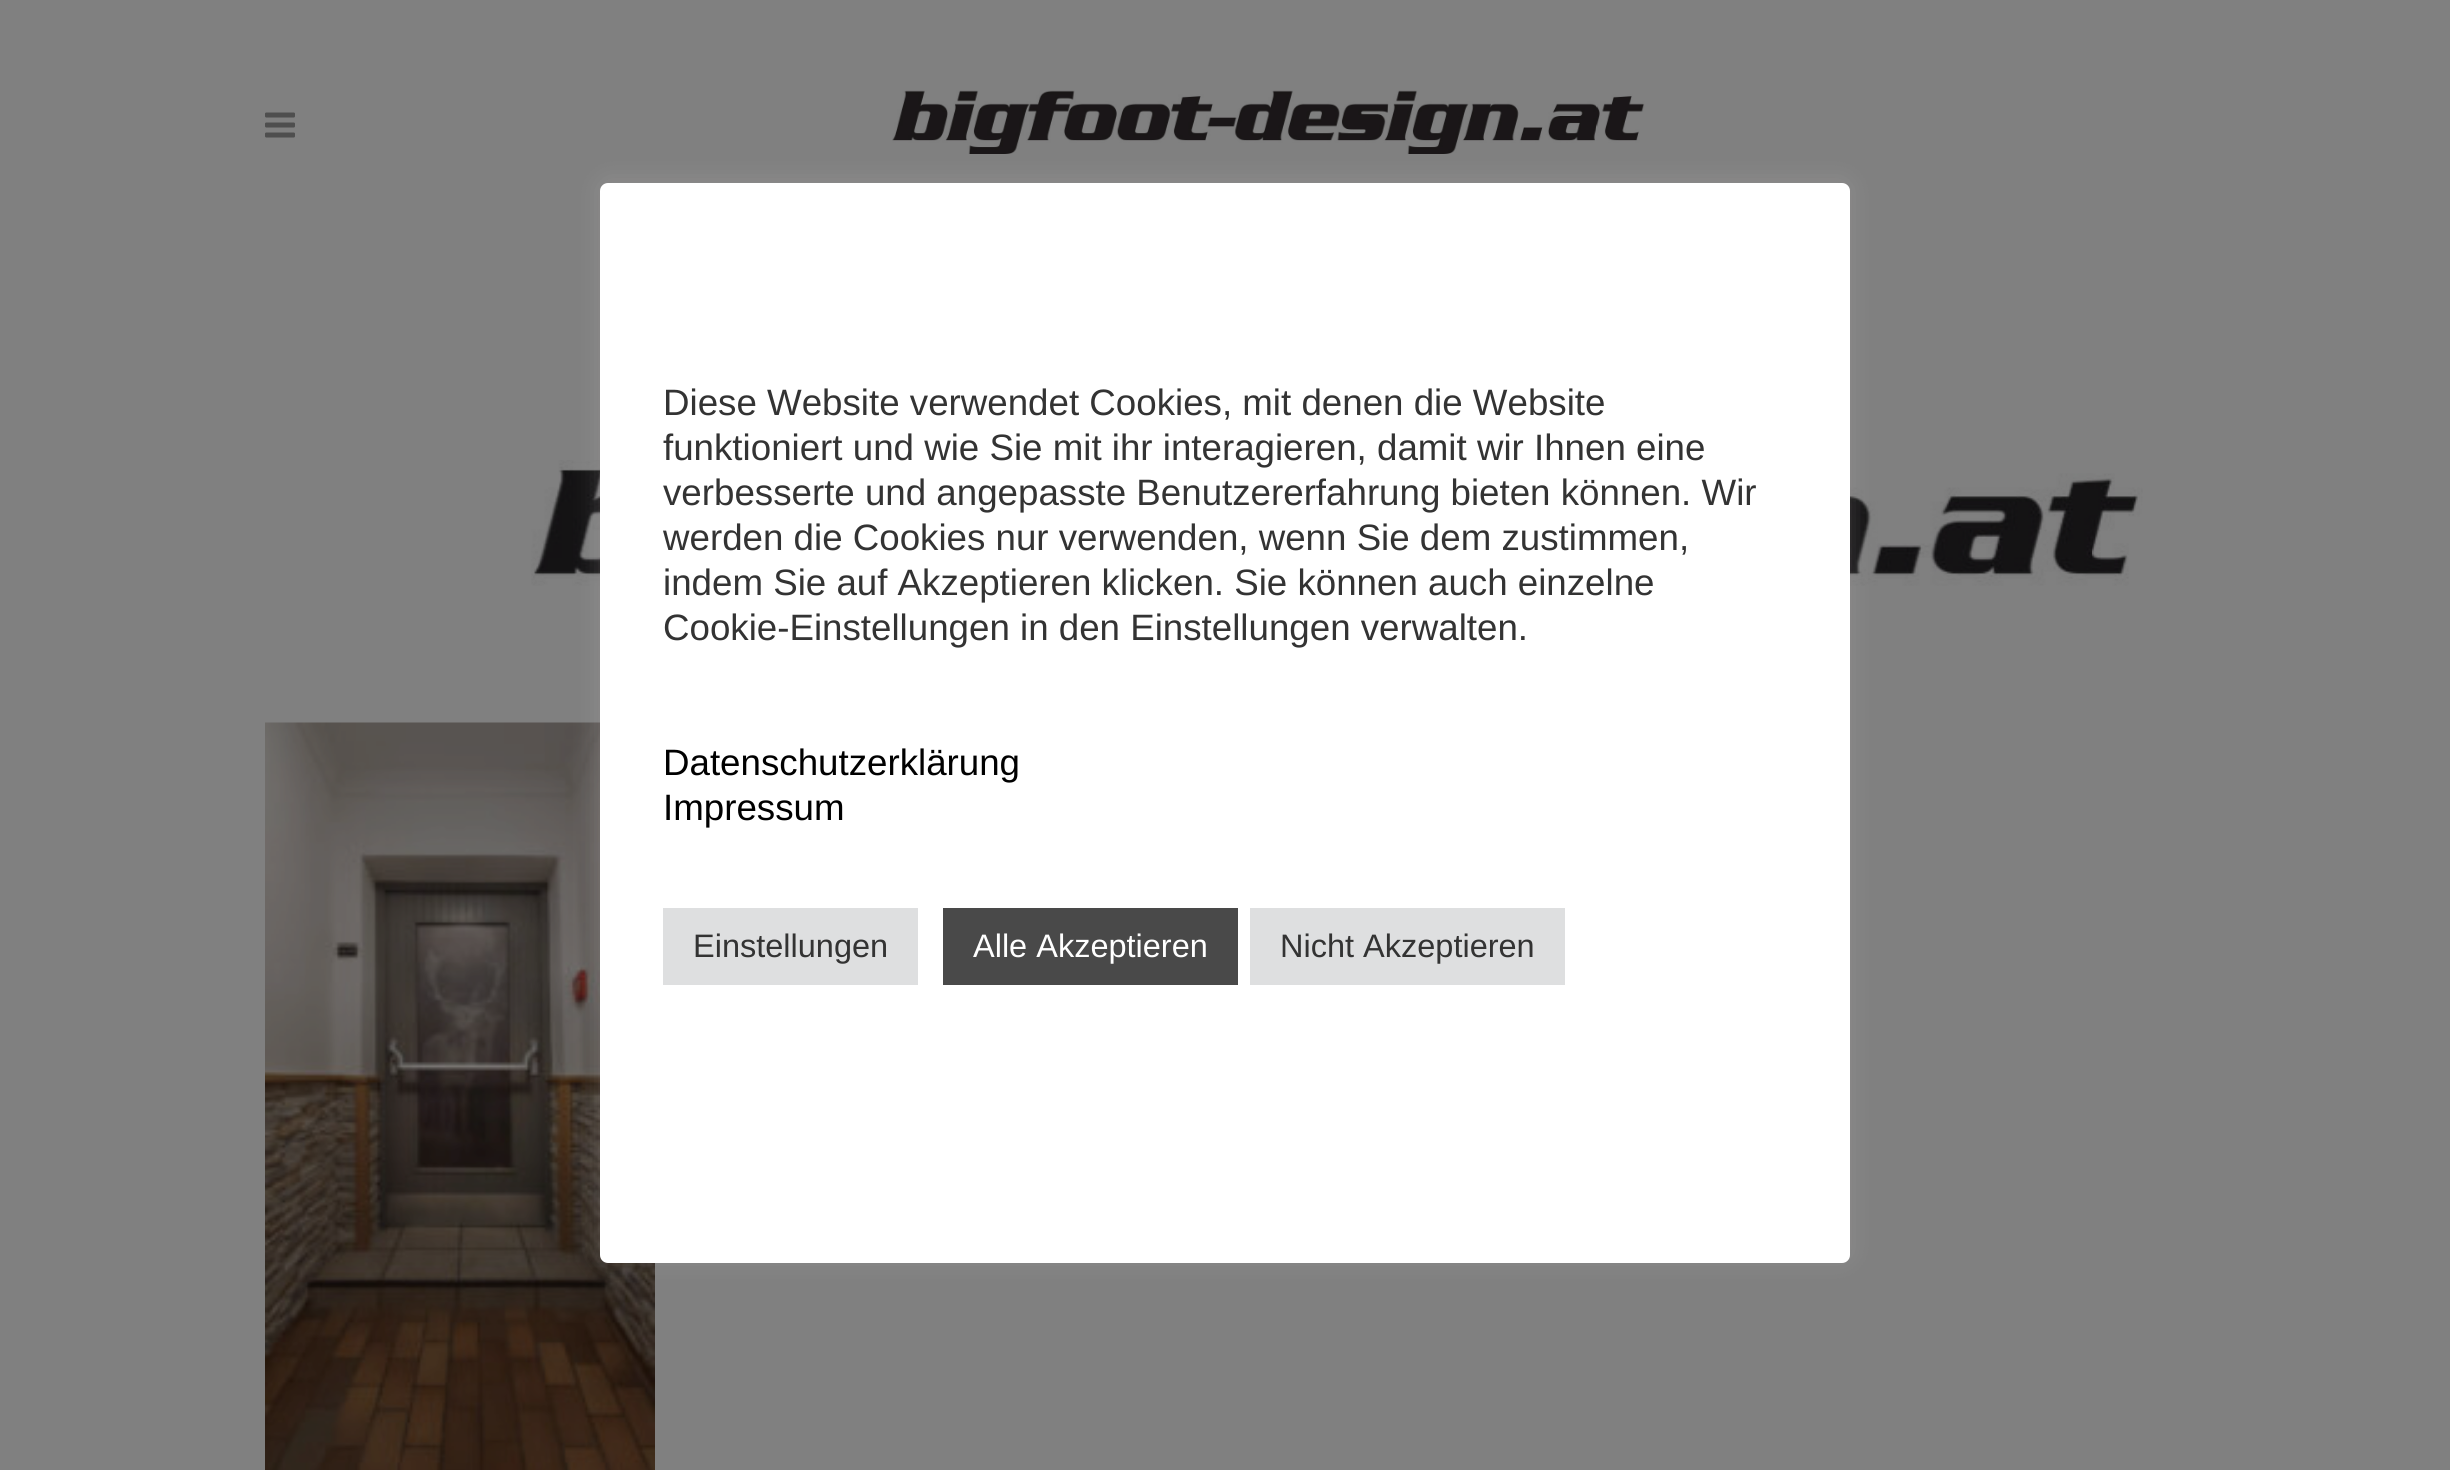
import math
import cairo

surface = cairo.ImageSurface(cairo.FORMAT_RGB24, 2450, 1470)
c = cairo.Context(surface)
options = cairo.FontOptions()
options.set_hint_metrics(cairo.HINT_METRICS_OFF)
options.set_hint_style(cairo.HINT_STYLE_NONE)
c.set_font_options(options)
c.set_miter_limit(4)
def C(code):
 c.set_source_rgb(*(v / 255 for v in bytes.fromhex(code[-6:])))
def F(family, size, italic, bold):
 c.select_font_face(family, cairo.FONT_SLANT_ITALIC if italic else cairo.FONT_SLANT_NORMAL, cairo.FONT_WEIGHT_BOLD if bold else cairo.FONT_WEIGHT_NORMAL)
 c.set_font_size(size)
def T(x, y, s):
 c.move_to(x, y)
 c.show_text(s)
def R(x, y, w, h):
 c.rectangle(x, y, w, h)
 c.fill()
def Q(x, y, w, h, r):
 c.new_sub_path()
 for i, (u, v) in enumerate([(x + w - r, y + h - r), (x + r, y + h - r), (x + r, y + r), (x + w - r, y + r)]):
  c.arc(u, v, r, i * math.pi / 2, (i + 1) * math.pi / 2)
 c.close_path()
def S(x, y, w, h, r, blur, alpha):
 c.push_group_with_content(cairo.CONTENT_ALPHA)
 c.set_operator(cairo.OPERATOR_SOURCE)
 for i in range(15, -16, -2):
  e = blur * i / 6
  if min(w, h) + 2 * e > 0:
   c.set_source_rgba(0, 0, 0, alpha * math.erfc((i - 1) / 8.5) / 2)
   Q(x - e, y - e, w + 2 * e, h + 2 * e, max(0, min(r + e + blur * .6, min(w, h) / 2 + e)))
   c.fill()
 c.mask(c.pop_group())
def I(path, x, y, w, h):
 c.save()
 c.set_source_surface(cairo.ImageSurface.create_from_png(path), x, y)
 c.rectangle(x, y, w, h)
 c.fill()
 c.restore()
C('808080')
c.paint()
I('1.png',265,112,30,26)
I('2.png',892,90,753,64)
I('3.png',531,460,1612,153)
I('4.png',265,722,390,748)
C('acabab')
S(600,180,1250,1080,8,12.5,.3)
C('ffffff')
Q(600,183,1250,1080,8)
c.fill()
F('Liberation Sans',36.7,0,0)
C('333333')
T(663,415,'Diese Website verwendet Cookies, mit denen die Website')
T(663,460,'funktioniert und wie Sie mit ihr interagieren, damit wir Ihnen eine')
T(663,505,'verbesserte und angepasste Benutzererfahrung bieten können. Wir')
T(663,550,'werden die Cookies nur verwenden, wenn Sie dem zustimmen,')
T(663,595,'indem Sie auf Akzeptieren klicken. Sie können auch einzelne')
T(663,640,'Cookie-Einstellungen in den Einstellungen verwalten.')
C('000000')
T(663,775,'Datenschutzerklärung')
T(663,820,'Impressum')
C('dedfe0')
R(663,908,255,77)
F('Liberation Sans',32.5,0,0)
C('333333')
T(693,957,'Einstellungen')
C('494949')
R(943,908,295,77)
C('ffffff')
T(973,957,'Alle Akzeptieren')
C('dedfe0')
R(1250,908,315,77)
C('333333')
T(1280,957,'Nicht Akzeptieren')
surface.write_to_png('o.png')
